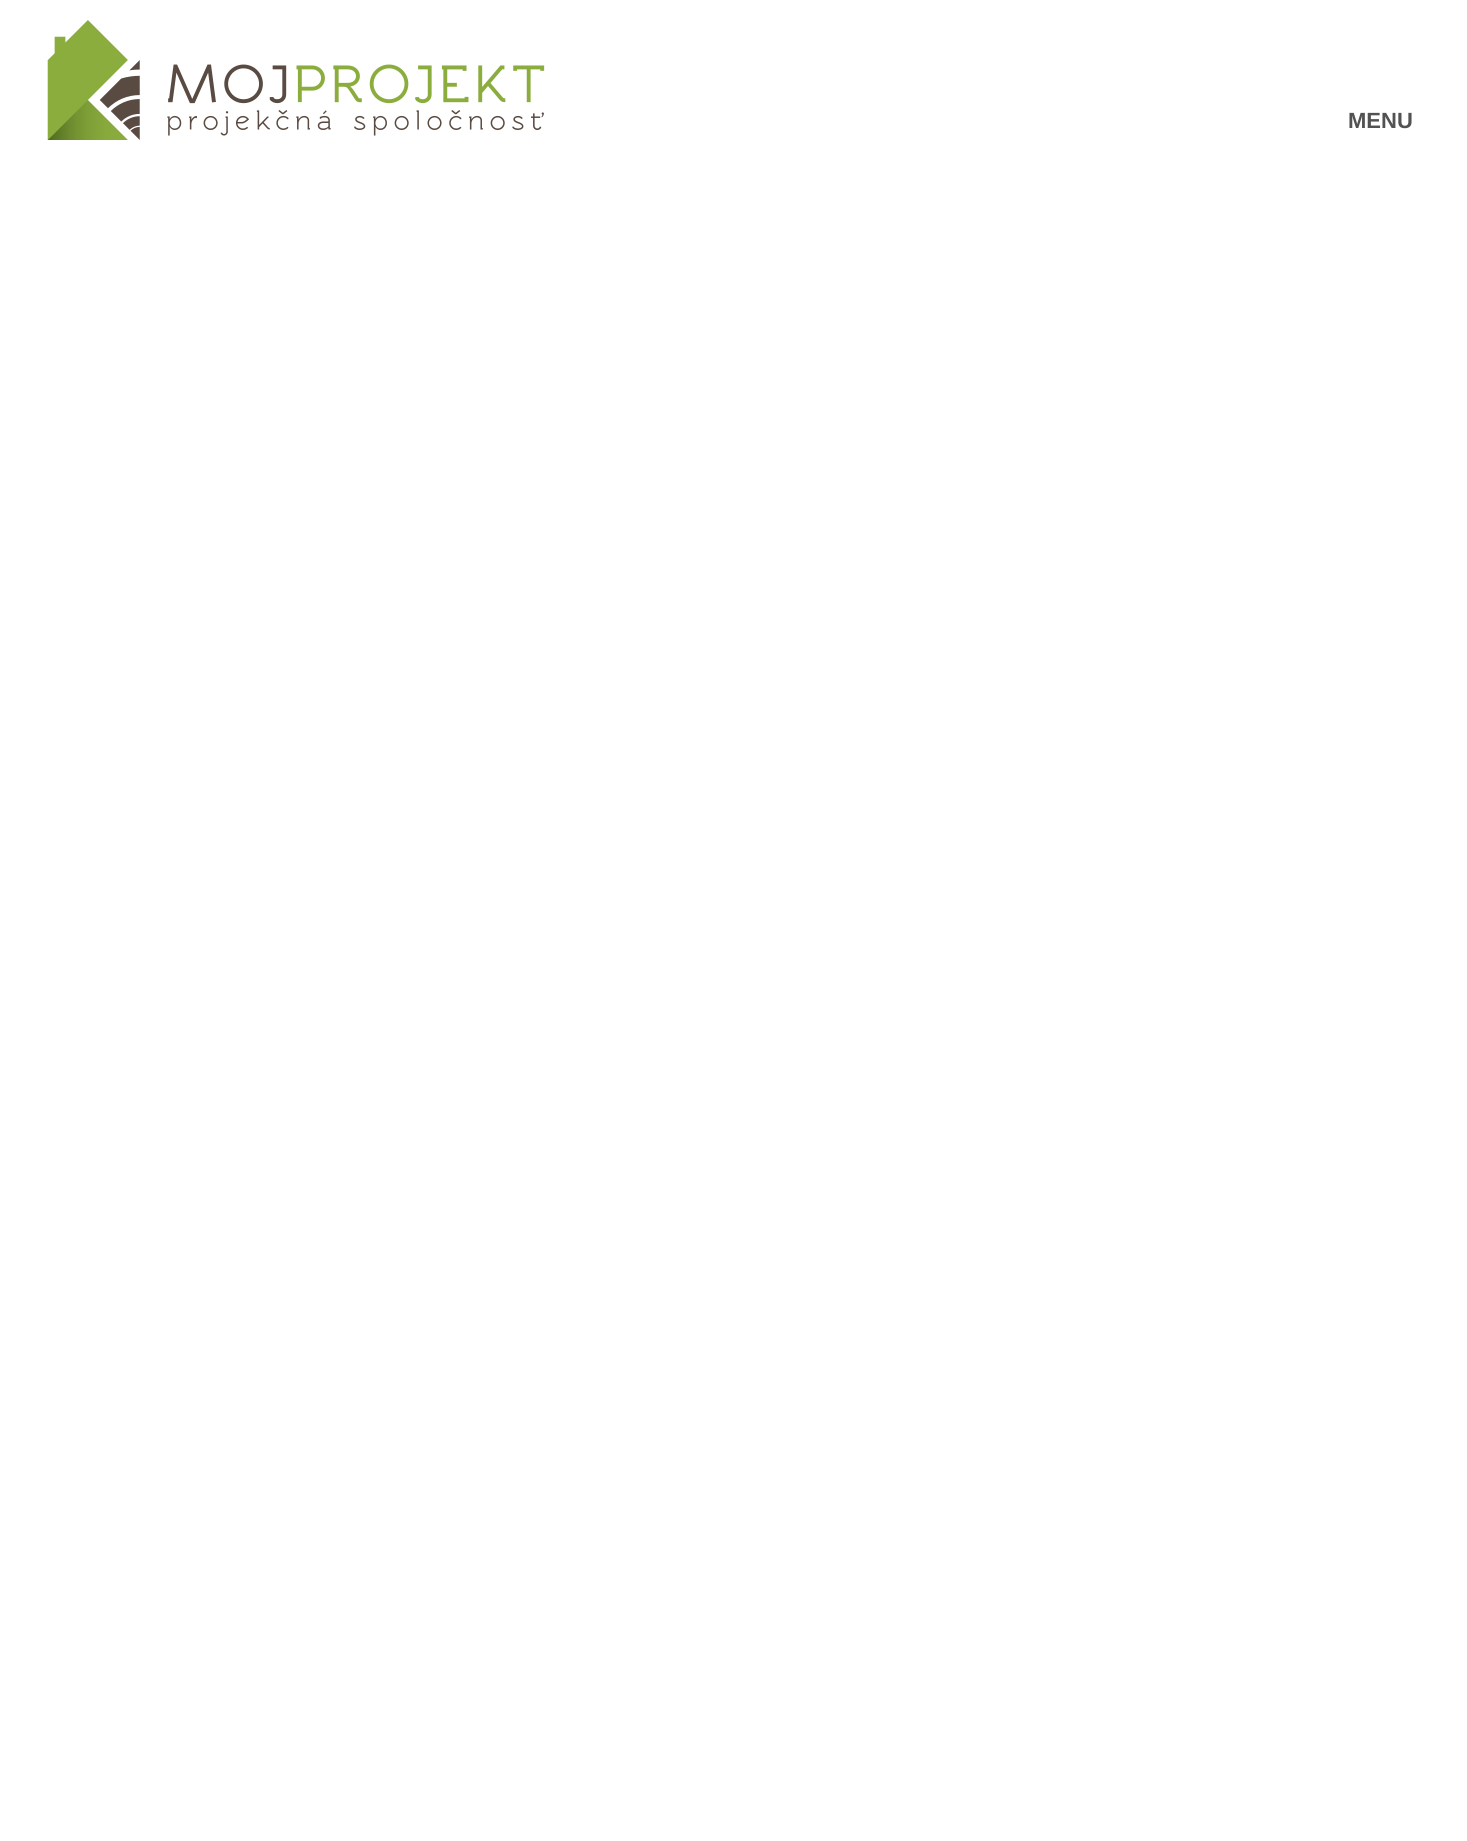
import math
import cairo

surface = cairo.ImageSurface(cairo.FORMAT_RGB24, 1467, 1841)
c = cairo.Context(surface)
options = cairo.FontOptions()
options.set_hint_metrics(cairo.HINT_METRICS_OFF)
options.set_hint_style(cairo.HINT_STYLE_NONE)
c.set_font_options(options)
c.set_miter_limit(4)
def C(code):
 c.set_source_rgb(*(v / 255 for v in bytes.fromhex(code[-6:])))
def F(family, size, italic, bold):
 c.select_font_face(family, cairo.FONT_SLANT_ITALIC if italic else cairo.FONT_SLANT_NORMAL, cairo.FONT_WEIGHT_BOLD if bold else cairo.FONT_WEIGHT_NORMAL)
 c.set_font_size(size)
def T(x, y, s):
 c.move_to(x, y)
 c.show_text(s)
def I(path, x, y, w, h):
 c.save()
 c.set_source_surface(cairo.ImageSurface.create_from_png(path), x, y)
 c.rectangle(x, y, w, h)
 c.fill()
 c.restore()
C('ffffff')
c.paint()
I('1.png',47,20,498,120)
F('Liberation Sans',22,0,1)
C('525252')
T(1348,128,'MENU')
surface.write_to_png('o.png')
